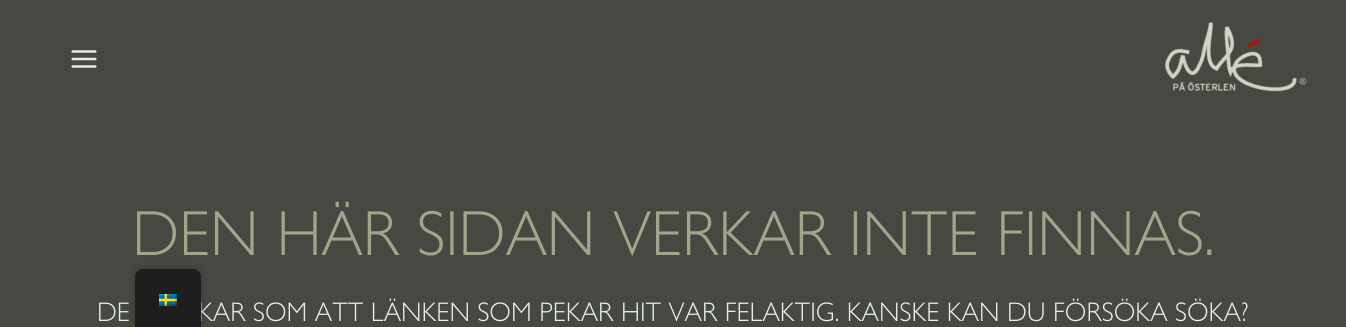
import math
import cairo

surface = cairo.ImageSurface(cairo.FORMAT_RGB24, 1346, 327)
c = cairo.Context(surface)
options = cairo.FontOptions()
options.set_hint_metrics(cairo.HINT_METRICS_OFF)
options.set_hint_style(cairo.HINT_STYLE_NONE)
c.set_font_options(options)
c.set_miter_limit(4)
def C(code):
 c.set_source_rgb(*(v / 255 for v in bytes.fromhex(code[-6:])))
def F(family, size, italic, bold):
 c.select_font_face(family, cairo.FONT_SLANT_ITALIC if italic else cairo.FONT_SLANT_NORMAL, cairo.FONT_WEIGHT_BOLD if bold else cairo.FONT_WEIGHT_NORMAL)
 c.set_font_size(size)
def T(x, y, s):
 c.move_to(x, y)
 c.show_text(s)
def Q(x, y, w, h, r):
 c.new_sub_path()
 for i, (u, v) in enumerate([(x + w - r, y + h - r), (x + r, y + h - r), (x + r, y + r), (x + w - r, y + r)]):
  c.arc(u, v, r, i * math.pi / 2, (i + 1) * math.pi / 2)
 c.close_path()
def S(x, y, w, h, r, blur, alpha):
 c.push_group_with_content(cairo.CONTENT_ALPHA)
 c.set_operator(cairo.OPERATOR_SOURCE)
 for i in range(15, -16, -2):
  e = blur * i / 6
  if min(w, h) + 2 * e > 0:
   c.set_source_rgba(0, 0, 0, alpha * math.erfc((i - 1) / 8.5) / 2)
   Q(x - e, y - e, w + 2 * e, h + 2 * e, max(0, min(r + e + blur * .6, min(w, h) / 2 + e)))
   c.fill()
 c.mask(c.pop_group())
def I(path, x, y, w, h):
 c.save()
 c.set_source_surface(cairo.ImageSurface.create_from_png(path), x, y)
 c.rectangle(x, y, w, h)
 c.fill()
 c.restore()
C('454942')
c.paint()
I('1.png',71,50,26,18)
I('2.png',1164,22,143,70)
F('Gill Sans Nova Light',64,0,0)
C('a1a589')
T(132,255,'DEN HÄR SIDAN VERKAR INTE FINNAS.')
F('Gill Sans Nova Light',27,0,0)
C('eaede8')
T(97,321,'DE')
T(198,321,'KAR SOM ATT LÄNKEN SOM PEKAR HIT VAR FELAKTIG. KANSKE KAN DU FÖRSÖKA SÖKA?')
C('000000')
S(135,269,66,58,8,4,.25)
C('1e1e1e')
c.new_path()
c.move_to(143,269)
c.line_to(193,269)
c.curve_to(197.5,269,201,272.5,201,277)
c.line_to(201,327)
c.line_to(135,327)
c.line_to(135,277)
c.curve_to(135,272.5,138.5,269,143,269)
c.close_path()
c.fill()
I('3.png',159,294,18,12)
surface.write_to_png('o.png')
